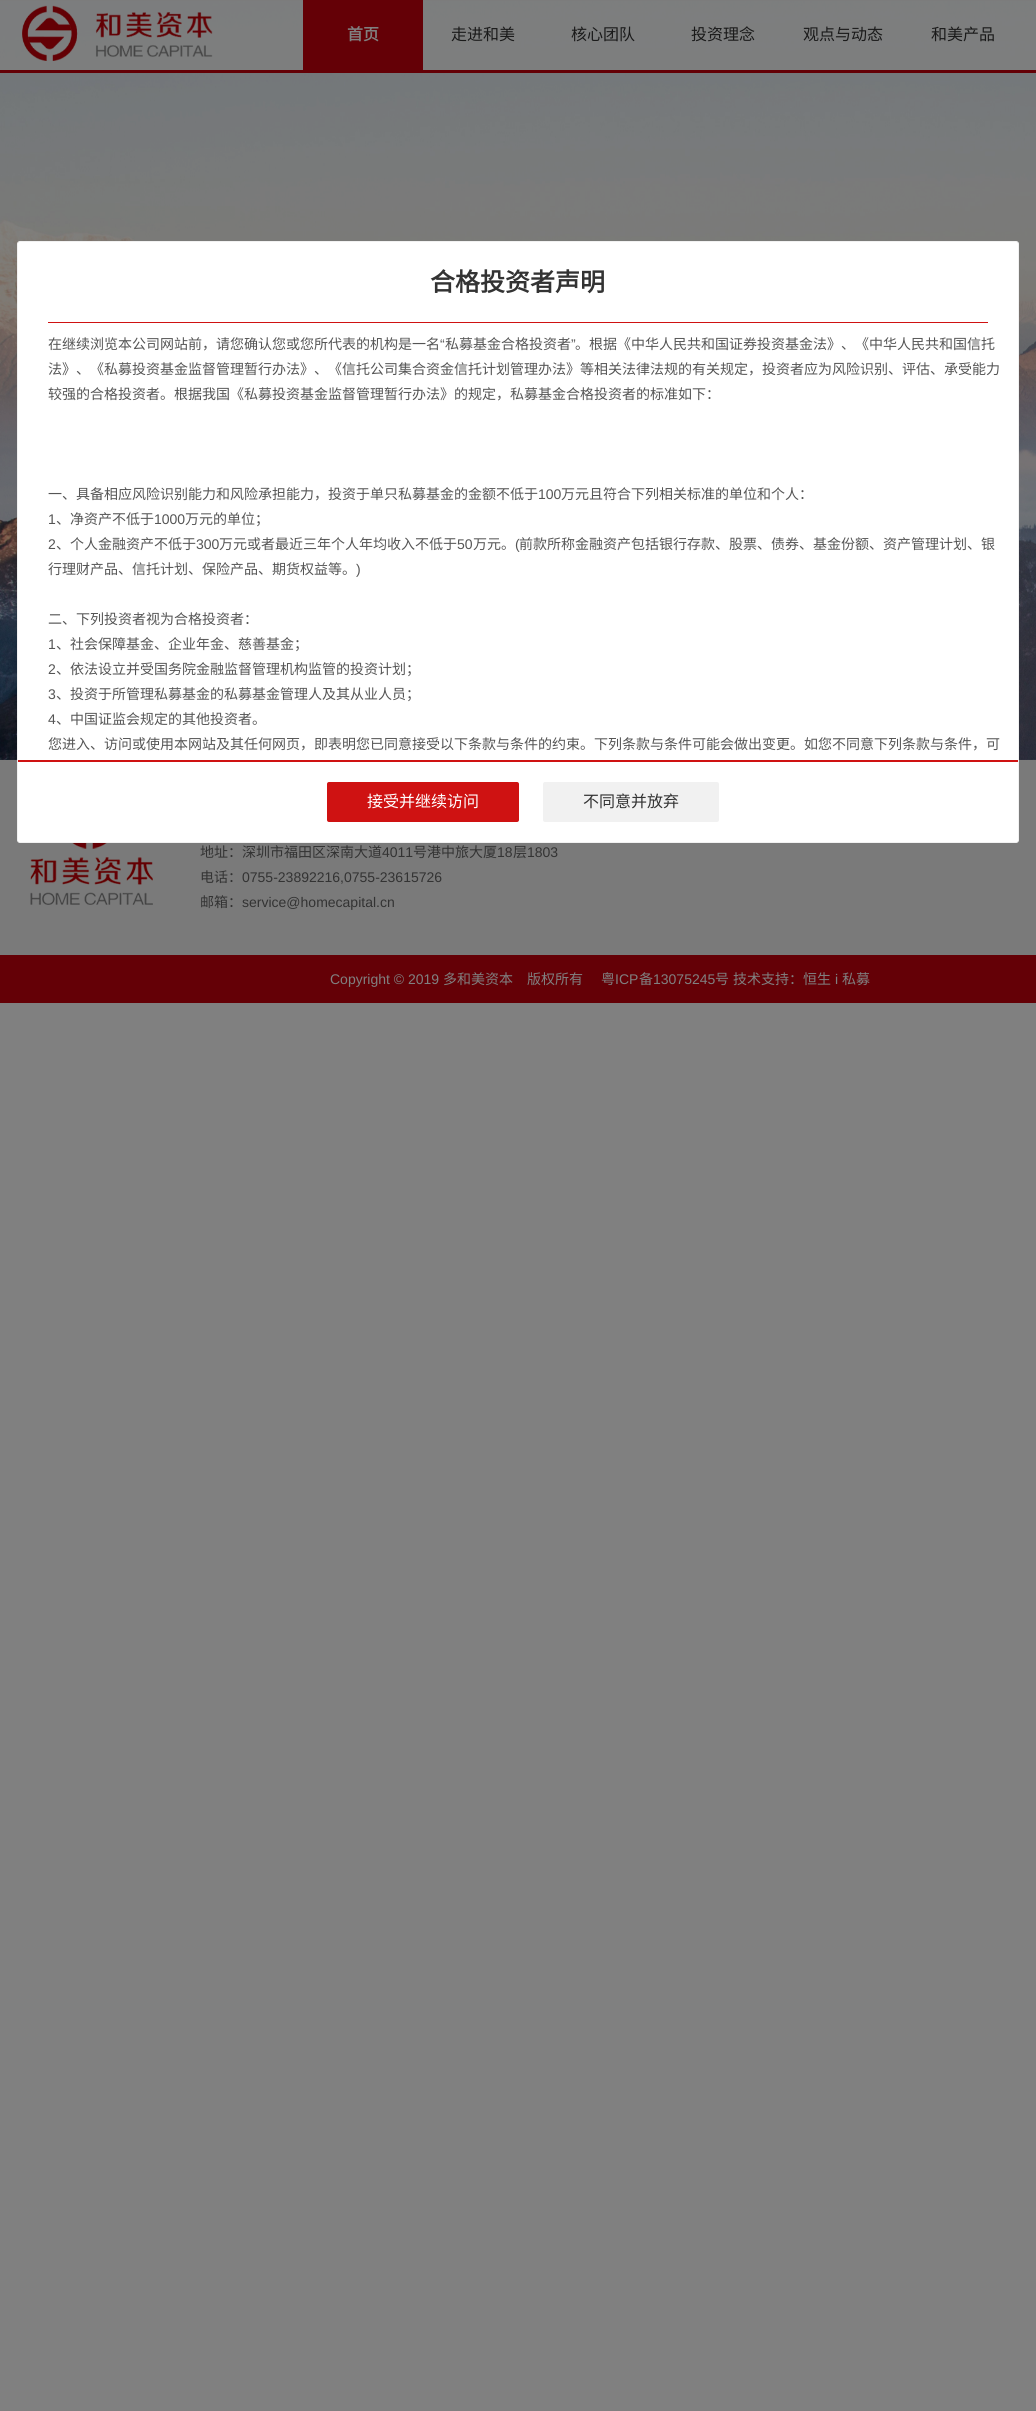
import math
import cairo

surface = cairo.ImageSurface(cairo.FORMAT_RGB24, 1036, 2411)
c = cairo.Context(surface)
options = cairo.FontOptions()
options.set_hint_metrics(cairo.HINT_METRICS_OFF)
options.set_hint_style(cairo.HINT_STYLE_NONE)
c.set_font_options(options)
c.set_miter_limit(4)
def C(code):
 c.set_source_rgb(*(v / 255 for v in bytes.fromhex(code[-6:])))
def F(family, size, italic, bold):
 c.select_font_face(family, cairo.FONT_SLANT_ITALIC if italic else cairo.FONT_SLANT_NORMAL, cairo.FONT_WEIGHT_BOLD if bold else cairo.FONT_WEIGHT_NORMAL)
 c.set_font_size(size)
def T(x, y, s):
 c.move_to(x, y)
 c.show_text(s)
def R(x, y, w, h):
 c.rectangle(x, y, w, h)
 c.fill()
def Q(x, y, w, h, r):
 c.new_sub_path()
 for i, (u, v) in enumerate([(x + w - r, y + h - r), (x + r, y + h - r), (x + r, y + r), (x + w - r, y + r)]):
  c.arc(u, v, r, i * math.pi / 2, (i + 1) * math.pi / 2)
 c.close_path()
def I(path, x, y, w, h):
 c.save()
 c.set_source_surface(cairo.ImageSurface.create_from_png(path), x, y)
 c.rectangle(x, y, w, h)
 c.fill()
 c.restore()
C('808080')
c.paint()
I('1.png',0,1,1036,759)
C('6f6e6d')
R(0,0,1036,1)
c.set_source_rgba(0.502,0.502,0.502,0.8)
R(0,0,1036,70)
C('640006')
R(0,70,1036,3)
I('2.png',22,5,191,56)
R(303,0,120,70)
F('Noto Sans CJK SC',16,0,1)
C('808080')
T(347,40,'首页')
F('Noto Sans CJK SC',16,0,0)
C('1a1a1a')
T(451,40,'走进和美')
T(571,40,'核心团队')
T(691,40,'投资理念')
T(803,40,'观点与动态')
T(931,40,'和美产品')
C('7a7a7a')
R(0,760,1036,195)
C('ffffff')
Q(17.5,241.5,1001,601,2.5)
c.fill_preserve()
C('f1f1f1')
c.set_line_width(1)
c.stroke()
C('cf1212')
R(48,322,940,1)
F('Noto Sans CJK SC',25,0,1)
C('333333')
T(430,291,'合格投资者声明')
F('Noto Sans CJK SC',14,0,0)
C('555555')
T(48,349,'在继续浏览本公司网站前，请您确认您或您所代表的机构是一名')
F('Liberation Sans',14,0,0)
T(440,349,'“')
F('Noto Sans CJK SC',14,0,0)
T(445,349,'私募基金合格投资者')
F('Liberation Sans',14,0,0)
T(571,349,'”')
F('Noto Sans CJK SC',14,0,0)
T(575,349,'。根据《中华人民共和国证券投资基金法》、《中华人民共和国信托')
T(48,374,'法》、《私募投资基金监督管理暂行办法》、《信托公司集合资金信托计划管理办法》等相关法律法规的有关规定，投资者应为风险识别、评估、承受能力')
T(48,399,'较强的合格投资者。根据我国《私募投资基金监督管理暂行办法》的规定，私募基金合格投资者的标准如下：')
T(48,499,'一、具备相应风险识别能力和风险承担能力，投资于单只私募基金的金额不低于')
F('Liberation Sans',14,0,0)
T(538,499,'100')
F('Noto Sans CJK SC',14,0,0)
T(561,499,'万元且符合下列相关标准的单位和个人：')
F('Liberation Sans',14,0,0)
T(48,524,'1')
F('Noto Sans CJK SC',14,0,0)
T(56,524,'、净资产不低于')
F('Liberation Sans',14,0,0)
T(154,524,'1000')
F('Noto Sans CJK SC',14,0,0)
T(185,524,'万元的单位；')
F('Liberation Sans',14,0,0)
T(48,549,'2')
F('Noto Sans CJK SC',14,0,0)
T(56,549,'、个人金融资产不低于')
F('Liberation Sans',14,0,0)
T(196,549,'300')
F('Noto Sans CJK SC',14,0,0)
T(219,549,'万元或者最近三年个人年均收入不低于')
F('Liberation Sans',14,0,0)
T(457,549,'50')
F('Noto Sans CJK SC',14,0,0)
T(473,549,'万元。')
F('Liberation Sans',14,0,0)
T(515,549,'(')
F('Noto Sans CJK SC',14,0,0)
T(519,549,'前款所称金融资产包括银行存款、股票、债券、基金份额、资产管理计划、银')
T(48,574,'行理财产品、信托计划、保险产品、期货权益等。')
F('Liberation Sans',14,0,0)
T(356,574,')')
F('Noto Sans CJK SC',14,0,0)
T(48,624,'二、下列投资者视为合格投资者：')
F('Liberation Sans',14,0,0)
T(48,649,'1')
F('Noto Sans CJK SC',14,0,0)
T(56,649,'、社会保障基金、企业年金、慈善基金；')
F('Liberation Sans',14,0,0)
T(48,674,'2')
F('Noto Sans CJK SC',14,0,0)
T(56,674,'、依法设立并受国务院金融监督管理机构监管的投资计划；')
F('Liberation Sans',14,0,0)
T(48,699,'3')
F('Noto Sans CJK SC',14,0,0)
T(56,699,'、投资于所管理私募基金的私募基金管理人及其从业人员；')
F('Liberation Sans',14,0,0)
T(48,724,'4')
F('Noto Sans CJK SC',14,0,0)
T(56,724,'、中国证监会规定的其他投资者。')
T(48,749,'您进入、访问或使用本网站及其任何网页，即表明您已同意接受以下条款与条件的约束。下列条款与条件可能会做出变更。如您不同意下列条款与条件，可')
C('ffffff')
c.new_path()
c.move_to(18,760)
c.line_to(1018,760)
c.line_to(1018,840)
c.curve_to(1018,841,1017,842,1016,842)
c.line_to(20,842)
c.curve_to(19,842,18,841,18,840)
c.close_path()
c.fill()
C('cf1212')
R(18,760,1000,2)
Q(327,782,192,40,2)
c.fill()
F('Noto Sans CJK SC',16,0,0)
C('ffffff')
T(367,807,'接受并继续访问')
C('f1f1f1')
Q(543,782,176,40,2)
c.fill()
C('333333')
T(583,807,'不同意并放弃')
C('640006')
R(0,955,1036,48)
I('3.png',30,843,123,62)
F('Noto Sans CJK SC',14,0,0)
C('333333')
T(200,857,'地址：深圳市福田区深南大道')
F('Liberation Sans',14,0,0)
T(382,857,'4011')
F('Noto Sans CJK SC',14,0,0)
T(413,857,'号港中旅大厦')
F('Liberation Sans',14,0,0)
T(497,857,'18')
F('Noto Sans CJK SC',14,0,0)
T(513,857,'层')
F('Liberation Sans',14,0,0)
T(527,857,'1803')
F('Noto Sans CJK SC',14,0,0)
T(200,882,'电话：')
F('Liberation Sans',14,0,0)
T(242,882,'0755-23892216,0755-23615726')
F('Noto Sans CJK SC',14,0,0)
T(200,907,'邮箱：')
F('Liberation Sans',14,0,0)
T(242,907,'service@homecapital.cn')
C('808080')
T(330,984,'Copyright © 2019')
F('Noto Sans CJK SC',14,0,0)
T(443,984,'多和美资本　版权所有')
T(601,984,'粤')
F('Liberation Sans',14,0,0)
T(615,984,'ICP')
F('Noto Sans CJK SC',14,0,0)
T(639,984,'备')
F('Liberation Sans',14,0,0)
T(653,984,'13075245')
F('Noto Sans CJK SC',14,0,0)
T(715,984,'号')
T(733,984,'技术支持：恒生')
F('Liberation Sans',14,0,0)
T(835,984,'i')
F('Noto Sans CJK SC',14,0,0)
T(842,984,'私募')
surface.write_to_png('o.png')
